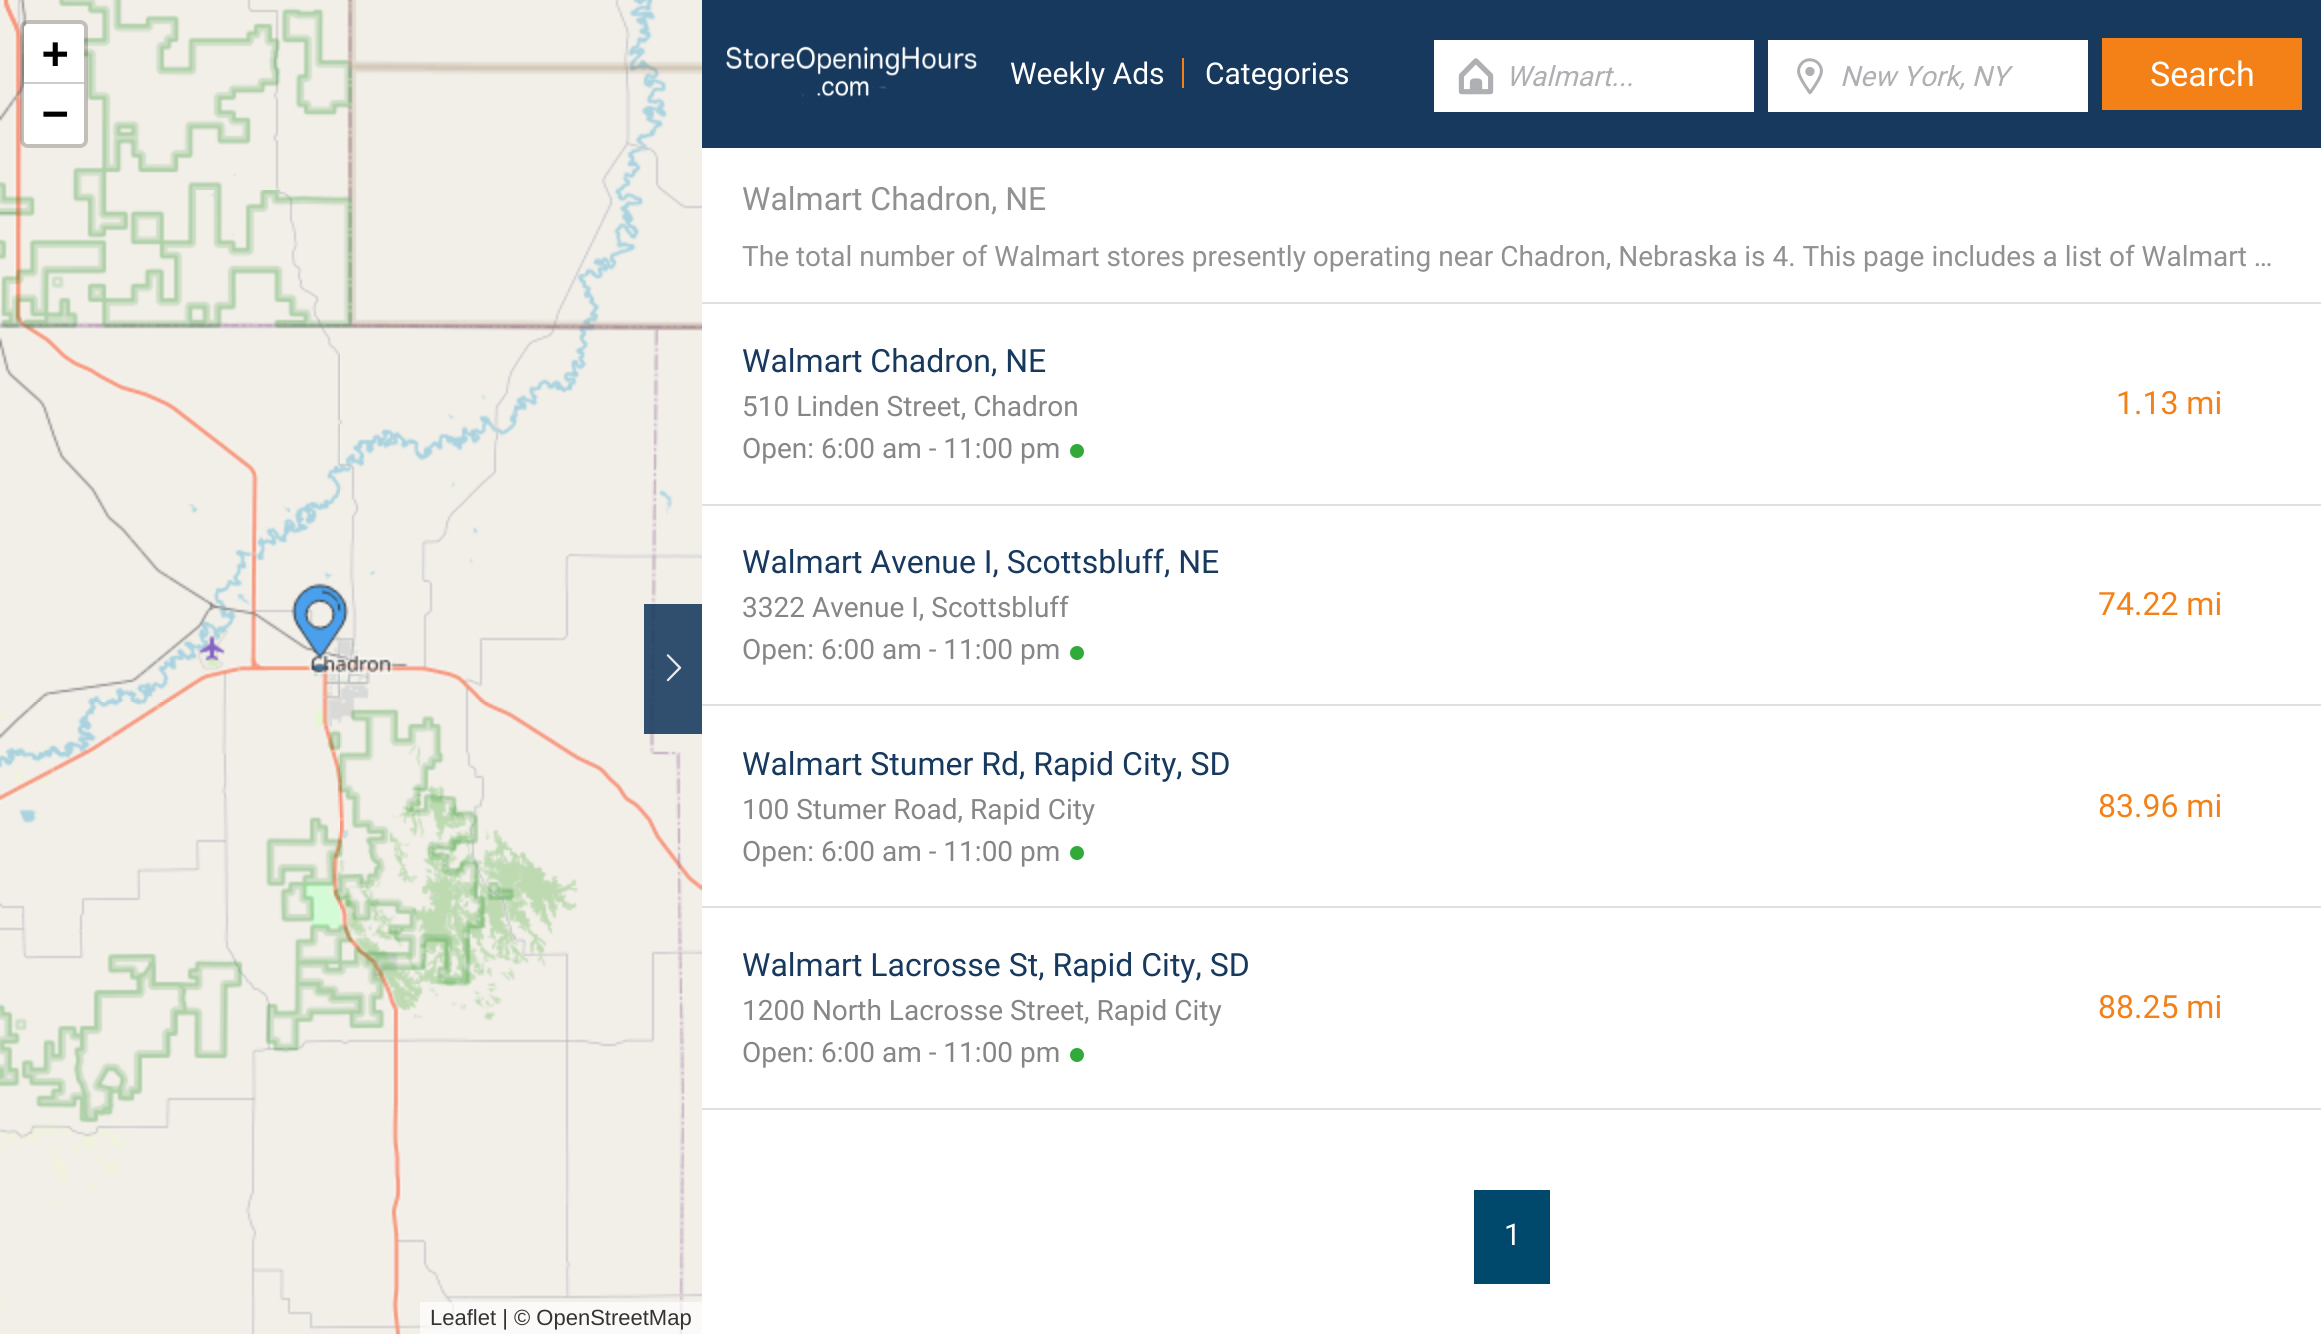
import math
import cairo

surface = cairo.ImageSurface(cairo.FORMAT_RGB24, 2321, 1334)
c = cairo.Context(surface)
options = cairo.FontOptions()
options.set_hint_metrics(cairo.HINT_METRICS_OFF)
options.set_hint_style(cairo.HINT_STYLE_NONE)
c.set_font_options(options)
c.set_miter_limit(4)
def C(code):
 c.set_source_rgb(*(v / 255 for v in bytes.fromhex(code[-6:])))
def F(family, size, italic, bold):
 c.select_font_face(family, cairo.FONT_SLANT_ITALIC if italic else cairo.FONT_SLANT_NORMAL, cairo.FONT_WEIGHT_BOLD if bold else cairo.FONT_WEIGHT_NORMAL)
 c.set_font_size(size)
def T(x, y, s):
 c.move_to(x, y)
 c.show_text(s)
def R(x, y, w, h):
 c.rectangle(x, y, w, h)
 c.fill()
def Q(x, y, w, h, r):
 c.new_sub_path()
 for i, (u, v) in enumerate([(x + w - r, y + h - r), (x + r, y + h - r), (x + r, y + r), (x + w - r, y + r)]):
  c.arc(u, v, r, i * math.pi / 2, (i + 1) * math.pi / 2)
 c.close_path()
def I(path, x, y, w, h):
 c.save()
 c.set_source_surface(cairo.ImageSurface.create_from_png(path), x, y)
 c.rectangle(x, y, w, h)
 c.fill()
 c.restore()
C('ffffff')
c.paint()
I('1.png',0,0,340,190)
I('2.png',340,0,362,190)
I('3.png',0,190,340,512)
I('4.png',340,190,362,512)
I('5.png',0,702,340,512)
I('6.png',340,702,362,512)
I('7.png',0,1214,340,120)
I('8.png',340,1214,362,120)
I('9.png',291,583,58,90)
Q(22,22,64,124,6)
c.set_source_rgba(0,0,0,0.2)
c.set_line_width(4)
c.stroke()
C('ffffff')
c.new_path()
c.move_to(28,24)
c.line_to(80,24)
c.curve_to(82,24,84,26,84,28)
c.line_to(84,84)
c.line_to(24,84)
c.line_to(24,28)
c.curve_to(24,26,26,24,28,24)
c.close_path()
c.fill()
C('cccccc')
R(24,82,60,2)
F('DejaVu Sans Mono',44,0,1)
C('000000')
T(42,68,'+')
C('ffffff')
c.new_path()
c.move_to(24,84)
c.line_to(84,84)
c.line_to(84,140)
c.curve_to(84,142,82,144,80,144)
c.line_to(28,144)
c.curve_to(26,144,24,142,24,140)
c.close_path()
c.fill()
C('000000')
T(42,128,'−')
c.set_source_rgba(1,1,1,0.7)
R(420,1302,282,32)
F('Liberation Sans',22,0,0)
C('333333')
T(430,1325,'Leaflet | © OpenStreetMap')
C('17395e')
R(702,0,1619,148)
I('10.png',726,46,251,59)
F('Roboto',30,0,0)
C('ffffff')
T(1010,84,'Weekly Ads')
C('f38118')
R(1182,58,2,30)
C('ffffff')
T(1205,84,'Categories')
R(1434,40,320,72)
I('11.png',1458,58,36,37)
F('Roboto',28,1,0)
C('aeb0b3')
T(1506,86,'Walmart...')
C('ffffff')
R(1768,40,320,72)
I('12.png',1797,58,26,37)
C('aeb0b3')
T(1840,86,'New York, NY')
C('f38118')
R(2102,38,200,72)
F('Roboto',34,0,0)
C('ffffff')
T(2150,86,'Search')
c.set_source_rgba(0.09,0.224,0.369,0.88)
R(644,604,58,130)
I('13.png',666,654,16,28)
C('e0e0e0')
R(702,302,1619,2)
F('Roboto',32,0,0)
C('919191')
T(742,210,'Walmart Chadron, NE')
F('Roboto',28,0,0)
T(742,266,'The total number of Walmart stores presently operating near Chadron, Nebraska is 4. This page includes a list of Walmart …')
C('e0e0e0')
R(702,504,1619,2)
F('Roboto',32,0,0)
C('17395e')
T(742,372,'Walmart Chadron, NE')
F('Roboto',28,0,0)
C('868686')
T(742,416,'510 Linden Street, Chadron')
F('Roboto',32,0,0)
C('f38118')
T(2116,414,'1.13 mi')
F('Roboto',28,0,0)
C('868686')
T(742,458,'Open: 6:00 am - 11:00 pm')
C('31aa3a')
c.new_path()
c.arc(1077,451,7,0,2 * math.pi)
c.fill()
C('e0e0e0')
R(702,704,1619,2)
F('Roboto',32,0,0)
C('17395e')
T(742,573,'Walmart Avenue I, Scottsbluff, NE')
F('Roboto',28,0,0)
C('868686')
T(742,617,'3322 Avenue I, Scottsbluff')
F('Roboto',32,0,0)
C('f38118')
T(2098,615,'74.22 mi')
F('Roboto',28,0,0)
C('868686')
T(742,659,'Open: 6:00 am - 11:00 pm')
C('31aa3a')
c.new_path()
c.arc(1077,653,7,0,2 * math.pi)
c.fill()
C('e0e0e0')
R(702,906,1619,2)
F('Roboto',32,0,0)
C('17395e')
T(742,775,'Walmart Stumer Rd, Rapid City, SD')
F('Roboto',28,0,0)
C('868686')
T(742,819,'100 Stumer Road, Rapid City')
F('Roboto',32,0,0)
C('f38118')
T(2098,817,'83.96 mi')
F('Roboto',28,0,0)
C('868686')
T(742,861,'Open: 6:00 am - 11:00 pm')
C('31aa3a')
c.new_path()
c.arc(1077,853,7,0,2 * math.pi)
c.fill()
C('e0e0e0')
R(702,1108,1619,2)
F('Roboto',32,0,0)
C('17395e')
T(742,976,'Walmart Lacrosse St, Rapid City, SD')
F('Roboto',28,0,0)
C('868686')
T(742,1020,'1200 North Lacrosse Street, Rapid City')
F('Roboto',32,0,0)
C('f38118')
T(2098,1018,'88.25 mi')
F('Roboto',28,0,0)
C('868686')
T(742,1062,'Open: 6:00 am - 11:00 pm')
C('31aa3a')
c.new_path()
c.arc(1077,1055,7,0,2 * math.pi)
c.fill()
C('00496c')
R(1474,1190,76,94)
F('Roboto',30,0,0)
C('ffffff')
T(1504,1245,'1')
surface.write_to_png('o.png')
